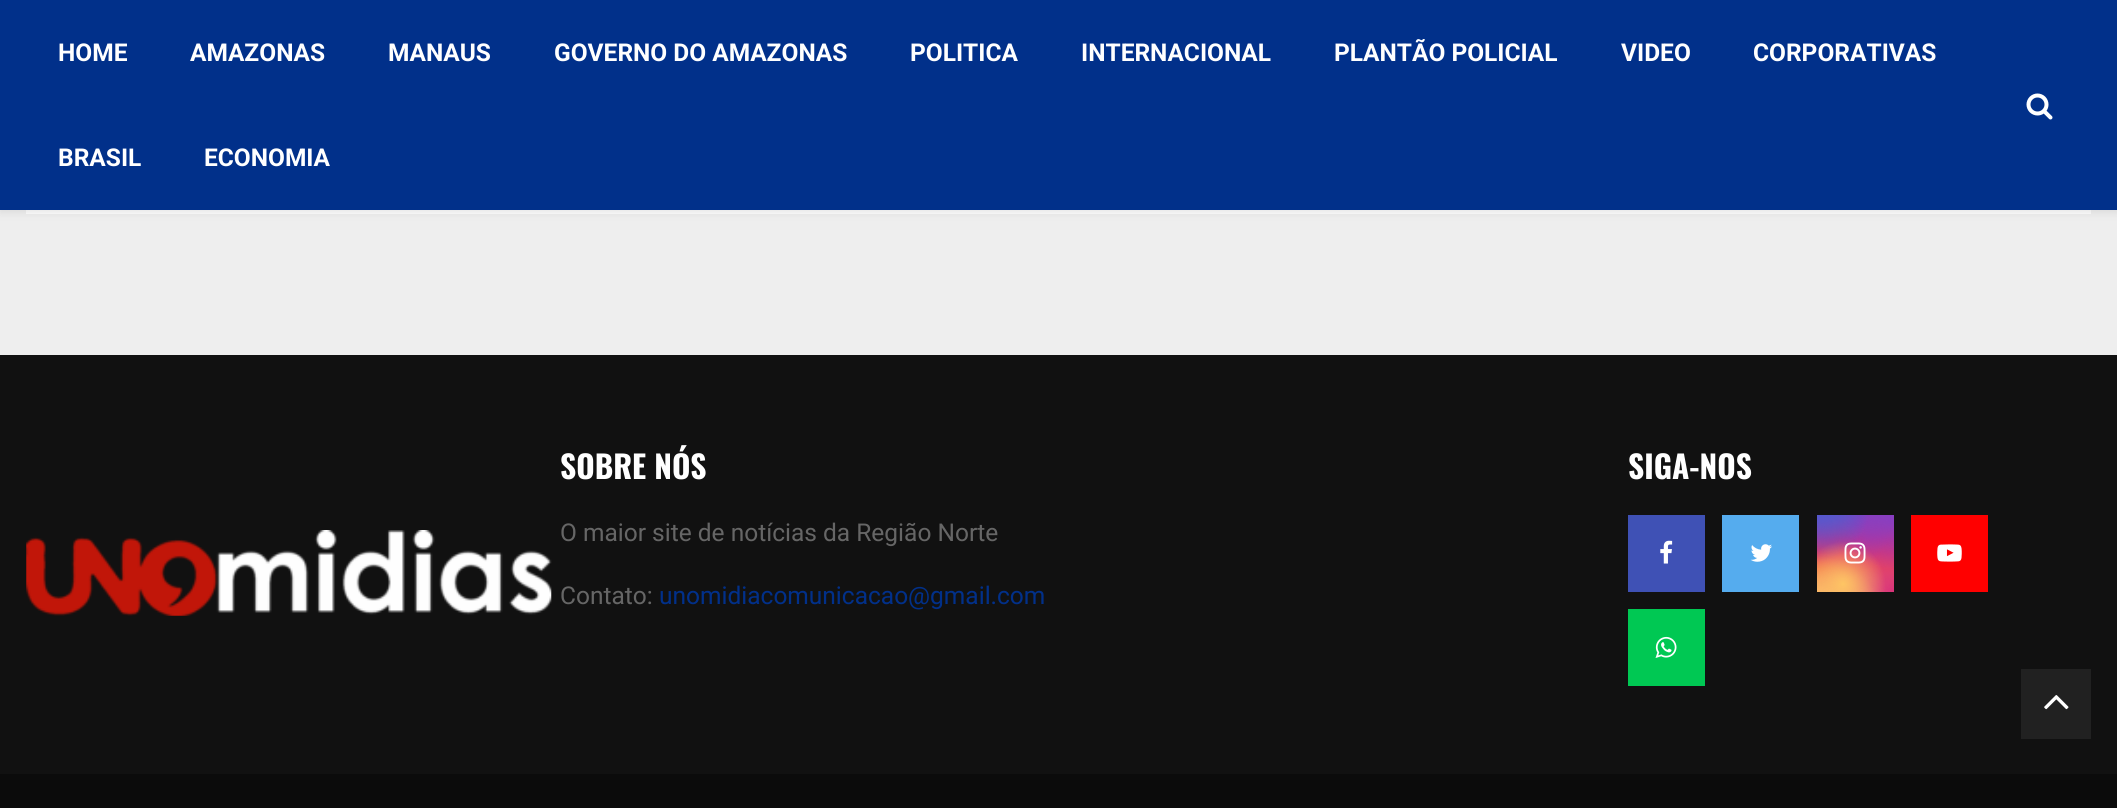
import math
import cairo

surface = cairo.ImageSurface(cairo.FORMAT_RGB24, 2117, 808)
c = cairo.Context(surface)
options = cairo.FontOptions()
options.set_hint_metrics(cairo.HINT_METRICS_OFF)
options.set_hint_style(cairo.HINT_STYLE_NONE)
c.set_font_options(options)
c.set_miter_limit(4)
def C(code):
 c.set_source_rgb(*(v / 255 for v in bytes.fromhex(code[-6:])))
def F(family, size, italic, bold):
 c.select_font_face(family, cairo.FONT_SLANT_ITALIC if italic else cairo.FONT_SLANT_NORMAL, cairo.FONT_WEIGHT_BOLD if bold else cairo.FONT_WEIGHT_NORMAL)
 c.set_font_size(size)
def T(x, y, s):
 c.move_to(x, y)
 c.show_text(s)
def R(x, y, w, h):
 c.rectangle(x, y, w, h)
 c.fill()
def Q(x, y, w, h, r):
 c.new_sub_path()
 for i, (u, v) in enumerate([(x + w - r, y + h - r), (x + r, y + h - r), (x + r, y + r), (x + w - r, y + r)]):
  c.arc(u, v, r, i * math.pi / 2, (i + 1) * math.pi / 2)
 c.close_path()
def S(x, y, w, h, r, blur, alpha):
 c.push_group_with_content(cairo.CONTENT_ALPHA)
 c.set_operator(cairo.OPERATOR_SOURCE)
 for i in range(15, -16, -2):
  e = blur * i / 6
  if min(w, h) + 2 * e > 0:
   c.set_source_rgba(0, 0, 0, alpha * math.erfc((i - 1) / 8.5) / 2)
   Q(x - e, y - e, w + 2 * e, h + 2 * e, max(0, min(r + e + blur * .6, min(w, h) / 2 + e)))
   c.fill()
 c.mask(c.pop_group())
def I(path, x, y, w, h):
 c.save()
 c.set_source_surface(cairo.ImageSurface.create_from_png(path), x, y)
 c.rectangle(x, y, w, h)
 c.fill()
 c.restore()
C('eeeeee')
c.paint()
C('ffffff')
R(26,210,2065,4)
C('bebebe')
S(0,2,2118,210,0,4.5,.46)
C('01308a')
R(0,0,2117,210)
F('Roboto',24.5,0,1)
C('ffffff')
T(58,61,'HOME')
T(190,61,'AMAZONAS')
T(388,61,'MANAUS')
T(554,61,'GOVERNO DO AMAZONAS')
T(910,61,'POLITICA')
T(1081,61,'INTERNACIONAL')
T(1334,61,'PLANTÃO POLICIAL')
T(1621,61,'VIDEO')
T(1753,61,'CORPORATIVAS')
T(58,166,'BRASIL')
T(204,166,'ECONOMIA')
I('1.png',2026,93,27,27)
C('111111')
R(0,355,2117,419)
F('Oswald',31.5,0,1)
C('ffffff')
T(560,479,'SOBRE NÓS')
F('Roboto',24.5,0,0)
C('666666')
T(560,541,'O maior site de notícias da Região Norte')
T(560,604,'Contato:')
C('01308a')
T(659,604,'unomidiacomunicacao@gmail.com')
F('Oswald',31.5,0,1)
C('ffffff')
T(1628,479,'SIGA-NOS')
C('3f51b5')
R(1628,515,77,77)
I('2.png',1660,540,13,24)
C('55acee')
R(1722,515,77,77)
I('3.png',1750,544,22,18)
gradient = cairo.LinearGradient(1855,515,1855,592)
gradient.add_color_stop_rgba(0,0.396,0.349,0.792,1)
gradient.add_color_stop_rgba(.3,0.737,0.192,0.561,1)
gradient.add_color_stop_rgba(.5,0.89,0.247,0.373,1)
gradient.add_color_stop_rgba(.7,0.969,0.463,0.22,1)
gradient.add_color_stop_rgba(1,0.996,0.776,0.427,1)
c.set_source(gradient)
R(1817,515,77,77)
gradient = cairo.RadialGradient(1894,592,0,1894,592,109)
gradient.add_color_stop_rgba(0,0.851,0.192,0.478,1)
gradient.add_color_stop_rgba(1,0.851,0.192,0.478,0)
c.set_source(gradient)
R(1817,515,77,77)
gradient = cairo.RadialGradient(0,0,0,0,0,1)
gradient.set_matrix(cairo.Matrix(1 / 65, 0, 0, 1 / 131, -1 * 1863 / 65, -1 * 499 / 131))
gradient.add_color_stop_rgba(0,0.537,0.239,0.761,1)
gradient.add_color_stop_rgba(.5,0.537,0.239,0.761,0)
c.set_source(gradient)
R(1835,515,56,48)
gradient = cairo.RadialGradient(1894,515,0,1894,515,109)
gradient.add_color_stop_rgba(0,0.537,0.239,0.761,1)
gradient.add_color_stop_rgba(.5,0.537,0.239,0.761,0)
c.set_source(gradient)
R(1846,515,48,53)
gradient = cairo.RadialGradient(0,0,0,0,0,1)
gradient.set_matrix(cairo.Matrix(1 / 87, 0, 0, 1 / 163, -1 * 1832 / 87, -1 * 476 / 163))
gradient.add_color_stop_rgba(0,0.322,0.345,0.812,1)
gradient.add_color_stop_rgba(.5,0.322,0.345,0.812,0)
c.set_source(gradient)
R(1817,515,51,41)
gradient = cairo.RadialGradient(0,0,0,0,0,1)
gradient.set_matrix(cairo.Matrix(1 / 109, 0, 0, 1 / 136, -1 * 1817 / 109, -1 * 495 / 136))
gradient.add_color_stop_rgba(0,0.322,0.345,0.812,1)
gradient.add_color_stop_rgba(.5,0.322,0.345,0.812,0)
c.set_source(gradient)
R(1817,515,49,47)
gradient = cairo.RadialGradient(1817,622,0,1817,622,132)
gradient.add_color_stop_rgba(0,0.996,0.773,0.392,1)
gradient.add_color_stop_rgba(.5,0.996,0.773,0.392,0)
c.set_source(gradient)
R(1817,557,57,35)
gradient = cairo.RadialGradient(1843,584,0,1843,584,85)
gradient.add_color_stop_rgba(0,0.996,0.773,0.392,1)
gradient.add_color_stop_rgba(.5,0.996,0.773,0.392,0)
c.set_source(gradient)
R(1817,542,68,50)
I('4.png',1844,542,22,22)
C('ff0000')
R(1911,515,77,77)
I('5.png',1937,544,25,18)
C('00c853')
R(1628,609,77,77)
I('6.png',1655,636,22,22)
I('7.png',26,530,526,86)
C('0b0b0b')
R(0,774,2117,34)
C('212121')
R(2021,669,70,70)
I('8.png',2044,695,25,15)
surface.write_to_png('o.png')
